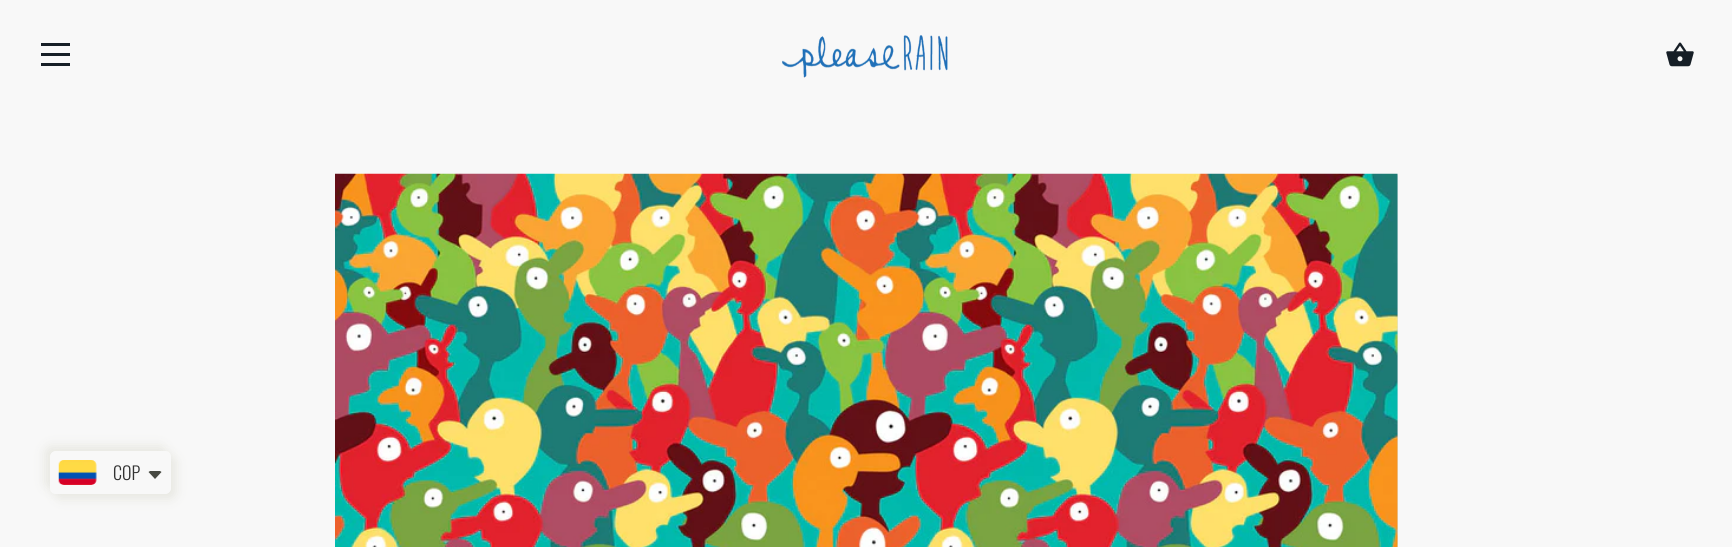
import math
import cairo

surface = cairo.ImageSurface(cairo.FORMAT_RGB24, 1732, 547)
c = cairo.Context(surface)
options = cairo.FontOptions()
options.set_hint_metrics(cairo.HINT_METRICS_OFF)
options.set_hint_style(cairo.HINT_STYLE_NONE)
c.set_font_options(options)
c.set_miter_limit(4)
def C(code):
 c.set_source_rgb(*(v / 255 for v in bytes.fromhex(code[-6:])))
def F(family, size, italic, bold):
 c.select_font_face(family, cairo.FONT_SLANT_ITALIC if italic else cairo.FONT_SLANT_NORMAL, cairo.FONT_WEIGHT_BOLD if bold else cairo.FONT_WEIGHT_NORMAL)
 c.set_font_size(size)
def T(x, y, s):
 c.move_to(x, y)
 c.show_text(s)
def R(x, y, w, h):
 c.rectangle(x, y, w, h)
 c.fill()
def Q(x, y, w, h, r):
 c.new_sub_path()
 for i, (u, v) in enumerate([(x + w - r, y + h - r), (x + r, y + h - r), (x + r, y + r), (x + w - r, y + r)]):
  c.arc(u, v, r, i * math.pi / 2, (i + 1) * math.pi / 2)
 c.close_path()
def S(x, y, w, h, r, blur, alpha):
 c.push_group_with_content(cairo.CONTENT_ALPHA)
 c.set_operator(cairo.OPERATOR_SOURCE)
 for i in range(15, -16, -2):
  e = blur * i / 6
  if min(w, h) + 2 * e > 0:
   c.set_source_rgba(0, 0, 0, alpha * math.erfc((i - 1) / 8.5) / 2)
   Q(x - e, y - e, w + 2 * e, h + 2 * e, max(0, min(r + e + blur * .6, min(w, h) / 2 + e)))
   c.fill()
 c.mask(c.pop_group())
def I(path, x, y, w, h):
 c.save()
 c.set_source_surface(cairo.ImageSurface.create_from_png(path), x, y)
 c.rectangle(x, y, w, h)
 c.fill()
 c.restore()
C('f8f8f8')
c.paint()
C('161e26')
R(41,43,29,3)
R(41,53,29,3)
R(41,63,29,3)
I('1.png',782,35,166,43)
I('2.png',1666,42,28,25)
c.save()
c.set_fill_rule(cairo.FILL_RULE_EVEN_ODD)
c.new_path()
c.move_to(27,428)
c.line_to(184,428)
c.line_to(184,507)
c.line_to(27,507)
c.close_path()
c.move_to(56,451)
c.line_to(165,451)
c.curve_to(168.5,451,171,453.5,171,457)
c.line_to(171,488)
c.curve_to(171,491.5,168.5,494,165,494)
c.line_to(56,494)
c.curve_to(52.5,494,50,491.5,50,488)
c.line_to(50,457)
c.curve_to(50,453.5,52.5,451,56,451)
c.close_path()
c.clip()
C('e8e8e2')
S(45,446,121,43,6,5.5,1)
c.restore()
c.save()
c.set_fill_rule(cairo.FILL_RULE_EVEN_ODD)
c.new_path()
c.move_to(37,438)
c.line_to(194,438)
c.line_to(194,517)
c.line_to(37,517)
c.close_path()
c.move_to(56,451)
c.line_to(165,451)
c.curve_to(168.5,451,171,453.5,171,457)
c.line_to(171,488)
c.curve_to(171,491.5,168.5,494,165,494)
c.line_to(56,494)
c.curve_to(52.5,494,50,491.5,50,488)
c.line_to(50,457)
c.curve_to(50,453.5,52.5,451,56,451)
c.close_path()
c.clip()
C('e8e8e2')
S(55,456,121,43,6,5.5,1)
c.restore()
I('3.png',58,460,39,25)
F('Oswald Light',18,0,0)
C('333333')
T(113,480,'COP')
C('474942')
c.new_path()
c.move_to(148.5,472)
c.line_to(150,471)
c.line_to(160,471)
c.line_to(161.5,472)
c.line_to(155,479)
c.close_path()
c.fill()
C('d9e2e9')
Q(335,174,1063,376,2.5)
c.fill()
I('4.png',335,173,1063,374)
surface.write_to_png('o.png')
